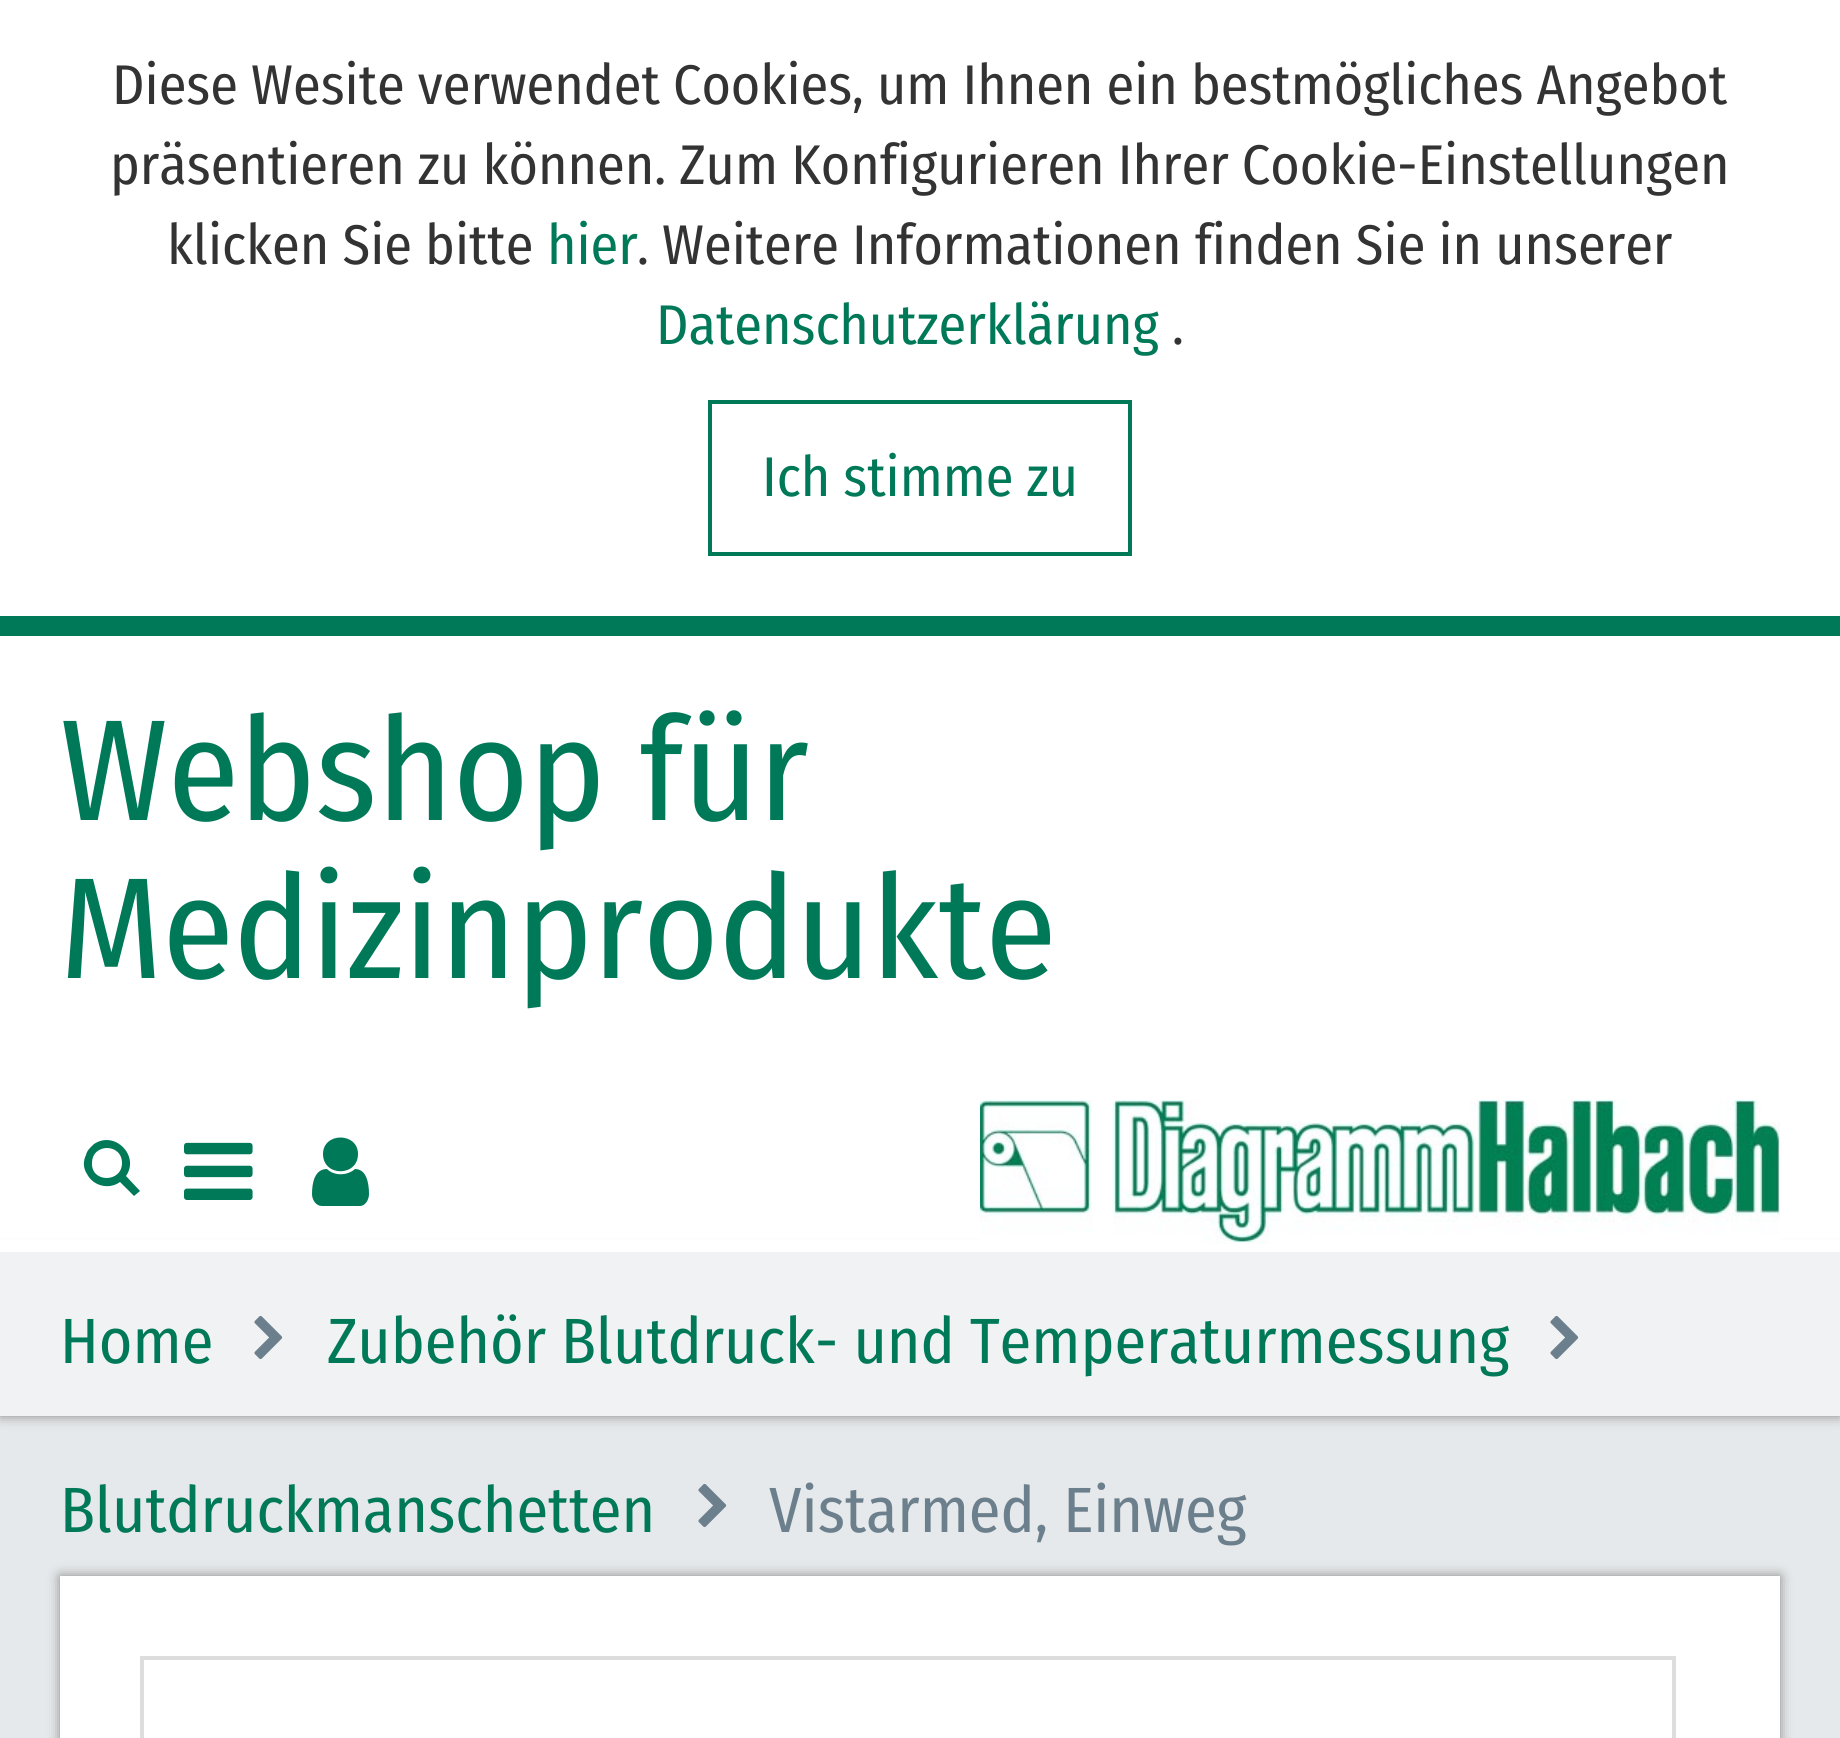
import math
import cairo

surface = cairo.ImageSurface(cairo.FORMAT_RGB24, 1840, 1738)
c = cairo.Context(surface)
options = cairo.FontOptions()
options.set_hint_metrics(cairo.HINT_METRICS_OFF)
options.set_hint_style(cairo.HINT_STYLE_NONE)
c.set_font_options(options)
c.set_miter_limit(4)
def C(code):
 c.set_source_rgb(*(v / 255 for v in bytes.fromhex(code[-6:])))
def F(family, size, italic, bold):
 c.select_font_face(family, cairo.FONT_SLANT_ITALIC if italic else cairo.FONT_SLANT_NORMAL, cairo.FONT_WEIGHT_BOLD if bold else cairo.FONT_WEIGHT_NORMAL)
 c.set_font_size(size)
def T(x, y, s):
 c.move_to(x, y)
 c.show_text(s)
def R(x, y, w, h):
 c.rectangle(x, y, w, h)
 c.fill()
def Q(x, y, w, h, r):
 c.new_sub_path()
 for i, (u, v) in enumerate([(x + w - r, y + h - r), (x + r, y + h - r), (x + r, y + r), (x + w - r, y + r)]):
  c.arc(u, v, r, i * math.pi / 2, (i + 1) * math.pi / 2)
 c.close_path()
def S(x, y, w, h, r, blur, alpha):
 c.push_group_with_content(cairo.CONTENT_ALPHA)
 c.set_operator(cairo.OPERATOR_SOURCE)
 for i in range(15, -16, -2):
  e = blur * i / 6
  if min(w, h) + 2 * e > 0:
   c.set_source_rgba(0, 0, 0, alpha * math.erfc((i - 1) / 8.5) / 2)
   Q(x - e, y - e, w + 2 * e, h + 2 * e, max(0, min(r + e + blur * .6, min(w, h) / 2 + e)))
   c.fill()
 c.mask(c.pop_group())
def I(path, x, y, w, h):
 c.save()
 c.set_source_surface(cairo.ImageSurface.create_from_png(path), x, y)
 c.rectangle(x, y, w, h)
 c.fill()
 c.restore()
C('ffffff')
c.paint()
C('007958')
R(0,616,1840,20)
F('Fira Sans Condensed',56,0,0)
C('333333')
T(112,104,'Diese Wesite verwendet Cookies, um Ihnen ein bestmögliches Angebot')
T(110,184,'präsentieren zu können. Zum Konfigurieren Ihrer Cookie-Einstellungen')
T(167,264,'klicken Sie bitte')
C('007958')
T(547,264,'hier')
C('333333')
T(637,264,'. Weitere Informationen finden Sie in unserer')
C('007958')
T(656,344,'Datenschutzerklärung')
C('333333')
T(1172,344,'.')
c.rectangle(710,402,420,152)
C('007958')
c.set_line_width(4)
c.stroke()
T(762,496,'Ich stimme zu')
C('e6e9eb')
R(0,1416,1840,322)
C('888888')
S(0,1252,1840,164,0,6,1)
C('ffffff')
R(0,1240,1840,12)
F('Fira Sans Condensed',144,0,0)
C('007958')
T(60,820,'Webshop für')
T(60,978,'Medizinprodukte')
c.new_path()
c.move_to(126,1176)
c.line_to(140,1191)
c.line_to(134,1196)
c.line_to(120,1182)
c.curve_to(109,1190,93,1186,87,1174)
c.curve_to(83,1168,83,1161,86,1155)
c.curve_to(87,1150,91,1147,94,1144)
c.curve_to(115,1130,140,1156,126,1176)
c.close_path()
c.move_to(122,1163)
c.curve_to(122,1143,92,1143,92,1163)
c.curve_to(91,1183,122,1183,122,1163)
c.close_path()
c.fill()
I('1.png',184,1142,69,58)
c.new_path()
c.move_to(369,1194)
c.curve_to(369,1182,366,1169,355,1169)
c.curve_to(347,1176,334,1176,327,1169)
c.curve_to(315,1169,312,1182,312,1194)
c.curve_to(312,1200,316,1206,322,1206)
c.line_to(360,1206)
c.curve_to(365,1206,369,1200,369,1194)
c.close_path()
c.move_to(358,1154)
c.curve_to(358,1132,323,1132,323,1154)
c.curve_to(323,1177,358,1177,358,1154)
c.close_path()
c.fill()
I('2.png',980,1100,800,144)
C('f0f2f3')
R(0,1252,1840,164)
F('Fira Sans Condensed',64,0,0)
C('007958')
T(60,1363,'Home')
I('3.png',254,1315,29,44)
T(327,1363,'Zubehör Blutdruck- und Temperaturmessung')
I('3.png',1550,1315,29,44)
T(60,1532,'Blutdruckmanschetten')
I('4.png',698,1483,29,44)
C('6c7f8c')
T(769,1532,'Vistarmed, Einweg')
C('888888')
S(60,1576,1720,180,0,6,1)
C('ffffff')
R(60,1576,1720,162)
c.rectangle(142,1658,1532,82)
C('dddddd')
c.stroke()
surface.write_to_png('o.png')
